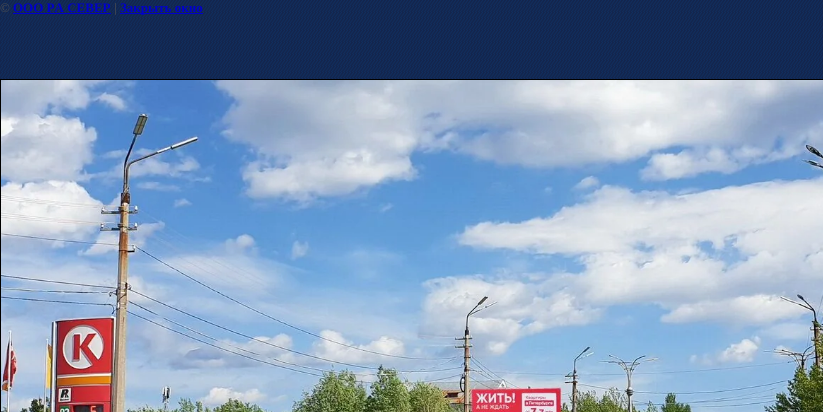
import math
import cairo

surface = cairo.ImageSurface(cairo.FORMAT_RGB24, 823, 412)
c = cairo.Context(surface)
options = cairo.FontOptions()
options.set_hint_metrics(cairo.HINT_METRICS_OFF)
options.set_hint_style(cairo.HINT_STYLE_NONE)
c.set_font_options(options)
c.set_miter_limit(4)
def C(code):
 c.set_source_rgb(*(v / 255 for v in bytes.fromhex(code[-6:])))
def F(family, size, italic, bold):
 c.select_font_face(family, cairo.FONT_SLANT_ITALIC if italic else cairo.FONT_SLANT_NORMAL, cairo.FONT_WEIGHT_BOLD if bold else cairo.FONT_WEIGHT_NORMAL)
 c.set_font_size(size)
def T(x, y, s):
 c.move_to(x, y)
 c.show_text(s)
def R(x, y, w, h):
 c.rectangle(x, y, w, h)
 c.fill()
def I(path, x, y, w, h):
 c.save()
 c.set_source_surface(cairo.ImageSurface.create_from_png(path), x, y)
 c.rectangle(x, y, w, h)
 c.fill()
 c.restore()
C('ffffff')
c.paint()
I('1.png',0,0,823,79)
F('Liberation Serif',13,0,0)
C('515151')
T(0,12,'©')
F('Liberation Serif',13,0,1)
C('0000cc')
T(13,12,'ООО РА СЕВЕР')
R(13,13,98,1)
F('Liberation Serif',13,0,0)
C('515151')
T(114,12,'|')
C('0000cc')
R(120,13,83,1)
F('Liberation Serif',13,0,1)
T(120,12,'Закрыть окно')
c.rectangle(.5,79.5,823,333)
C('000000')
c.set_line_width(1)
c.stroke()
I('2.png',1,80,822,332)
surface.write_to_png('o.png')
